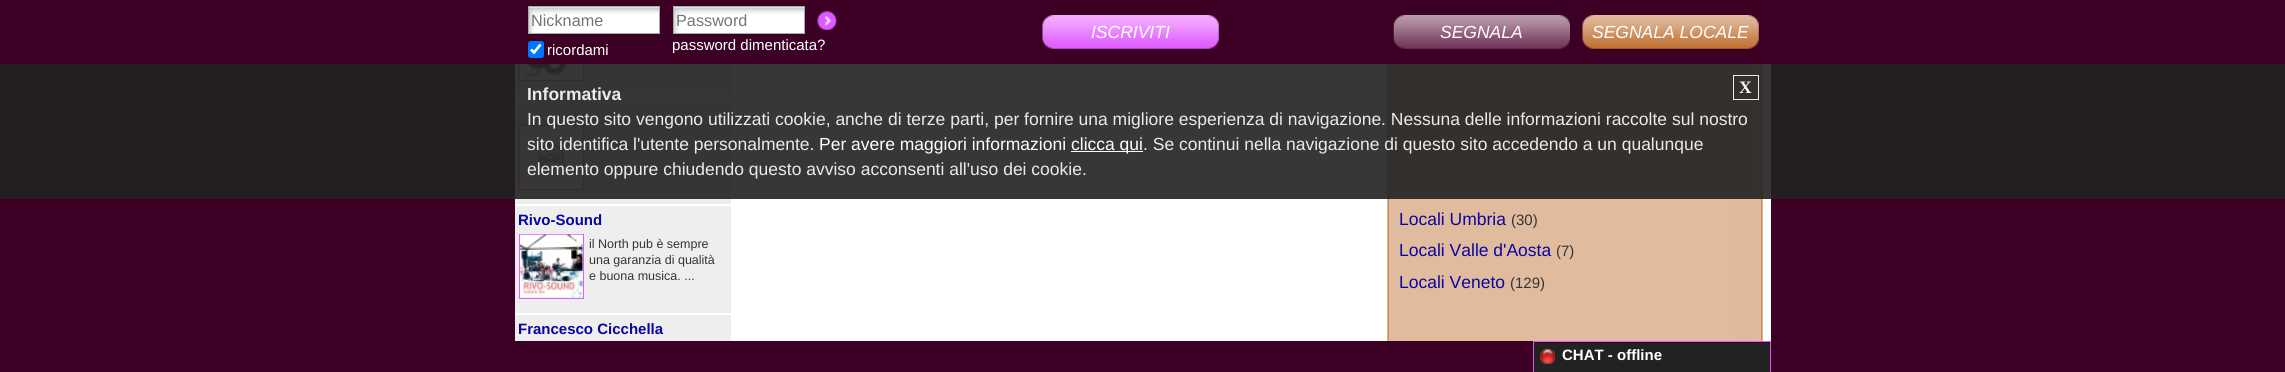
import math
import cairo

surface = cairo.ImageSurface(cairo.FORMAT_RGB24, 2285, 372)
c = cairo.Context(surface)
options = cairo.FontOptions()
options.set_hint_metrics(cairo.HINT_METRICS_OFF)
options.set_hint_style(cairo.HINT_STYLE_NONE)
c.set_font_options(options)
c.set_miter_limit(4)
def C(code):
 c.set_source_rgb(*(v / 255 for v in bytes.fromhex(code[-6:])))
def F(family, size, italic, bold):
 c.select_font_face(family, cairo.FONT_SLANT_ITALIC if italic else cairo.FONT_SLANT_NORMAL, cairo.FONT_WEIGHT_BOLD if bold else cairo.FONT_WEIGHT_NORMAL)
 c.set_font_size(size)
def T(x, y, s):
 c.move_to(x, y)
 c.show_text(s)
def R(x, y, w, h):
 c.rectangle(x, y, w, h)
 c.fill()
def Q(x, y, w, h, r):
 c.new_sub_path()
 for i, (u, v) in enumerate([(x + w - r, y + h - r), (x + r, y + h - r), (x + r, y + r), (x + w - r, y + r)]):
  c.arc(u, v, r, i * math.pi / 2, (i + 1) * math.pi / 2)
 c.close_path()
def I(path, x, y, w, h):
 c.save()
 c.set_source_surface(cairo.ImageSurface.create_from_png(path), x, y)
 c.rectangle(x, y, w, h)
 c.fill()
 c.restore()
C('3b0024')
c.paint()
C('ffffff')
R(515,64,1256,277)
C('eeeeee')
R(515,64,216,31)
c.rectangle(519.5,16.5,64,64)
C('de5bff')
c.set_line_width(1)
c.stroke()
C('3b0024')
R(519,16,65,48)
C('ffffff')
R(529,7,130,1)
I('1.png',529,7,130,26)
c.rectangle(528.5,6.5,131,27)
C('aaaaaa')
c.stroke()
F('Liberation Sans',16.25,0,0)
C('757575')
T(531,26,'Nickname')
C('0075ff')
Q(528,41,16,17,2.5)
c.fill()
c.new_path()
c.move_to(531,49.5)
c.line_to(534,52.5)
c.line_to(540.5,44.5)
C('ffffff')
c.set_line_width(2.6)
c.stroke()
F('Liberation Sans',15,0,0)
T(547,55,'ricordami')
R(674,7,130,1)
I('1.png',674,7,130,26)
c.rectangle(673.5,6.5,131,27)
C('aaaaaa')
c.set_line_width(1)
c.stroke()
F('Liberation Sans',16.25,0,0)
C('757575')
T(676,26,'Password')
I('2.png',817,11,20,19)
F('Liberation Sans',15,0,0)
C('ffffff')
T(672,50,'password dimenticata?')
I('3.png',1042,15,177,34)
F('Liberation Sans',17.5,1,0)
T(1091,38,'ISCRIVITI')
I('4.png',1393,15,177,34)
T(1440,38,'SEGNALA')
I('5.png',1582,15,177,34)
T(1592,38,'SEGNALA LOCALE')
I('6.png',520,64,63,16)
C('eeeeee')
R(515,98,216,106)
c.rectangle(519.5,125.5,64,64)
C('de5bff')
c.stroke()
I('7.png',520,126,63,63)
I('9.png',1387,64,376,277)
c.set_source_rgba(0.133,0.133,0.133,0.9)
R(0,64,2285,135)
c.rectangle(1733.5,75.5,25,24)
C('ebeaea')
c.stroke()
F('Liberation Serif',17.5,0,1)
C('fcf8f5')
T(1739,93,'X')
F('Liberation Sans',17.5,0,1)
C('ebebeb')
T(527,100,'Informativa')
F('Liberation Sans',17.5,0,0)
T(527,125,'In questo sito vengono utilizzati cookie, anche di terze parti, per fornire una migliore esperienza di navigazione. Nessuna delle informazioni raccolte sul nostro')
T(527,150,'sito identifica l\'utente personalmente.')
C('ffffff')
T(819,150,'Per avere maggiori informazioni')
R(1071,151,72,1)
T(1071,150,'clicca qui')
C('ebebeb')
T(1143,150,'. Se continui nella navigazione di questo sito accedendo a un qualunque')
T(527,175,'elemento oppure chiudendo questo avviso acconsenti all\'uso dei cookie.')
C('eeeeee')
R(515,206,216,107)
F('Liberation Sans',15,0,1)
C('0a069f')
T(518,225,'Rivo-Sound')
c.rectangle(519.5,234.5,64,64)
C('de5bff')
c.stroke()
I('8.png',520,234,63,64)
F('Liberation Sans',12.5,0,0)
C('333333')
T(589,248,'il North pub è sempre')
T(589,264,'una garanzia di qualità')
T(589,280,'e buona musica. ...')
C('eeeeee')
R(515,315,216,26)
F('Liberation Sans',15,0,1)
C('0a069f')
T(518,334,'Francesco Cicchella')
F('Liberation Sans',17.5,0,0)
T(1399,225,'Locali Umbria')
F('Liberation Sans',15,0,0)
C('333333')
T(1511,225,'(30)')
F('Liberation Sans',17.5,0,0)
C('0a069f')
T(1399,256,'Locali Valle d\'Aosta')
F('Liberation Sans',15,0,0)
C('333333')
T(1556,256,'(7)')
F('Liberation Sans',17.5,0,0)
C('0a069f')
T(1399,288,'Locali Veneto')
F('Liberation Sans',15,0,0)
C('333333')
T(1510,288,'(129)')
C('de5bff')
R(1533,341,238,1)
R(1770,341,1,31)
R(1533,341,1,31)
C('222222')
R(1534,343,236,29)
I('10.png',1539,348,16,16)
F('Liberation Sans',15,0,1)
C('ffffff')
T(1562,360,'CHAT - offline')
surface.write_to_png('o.png')
